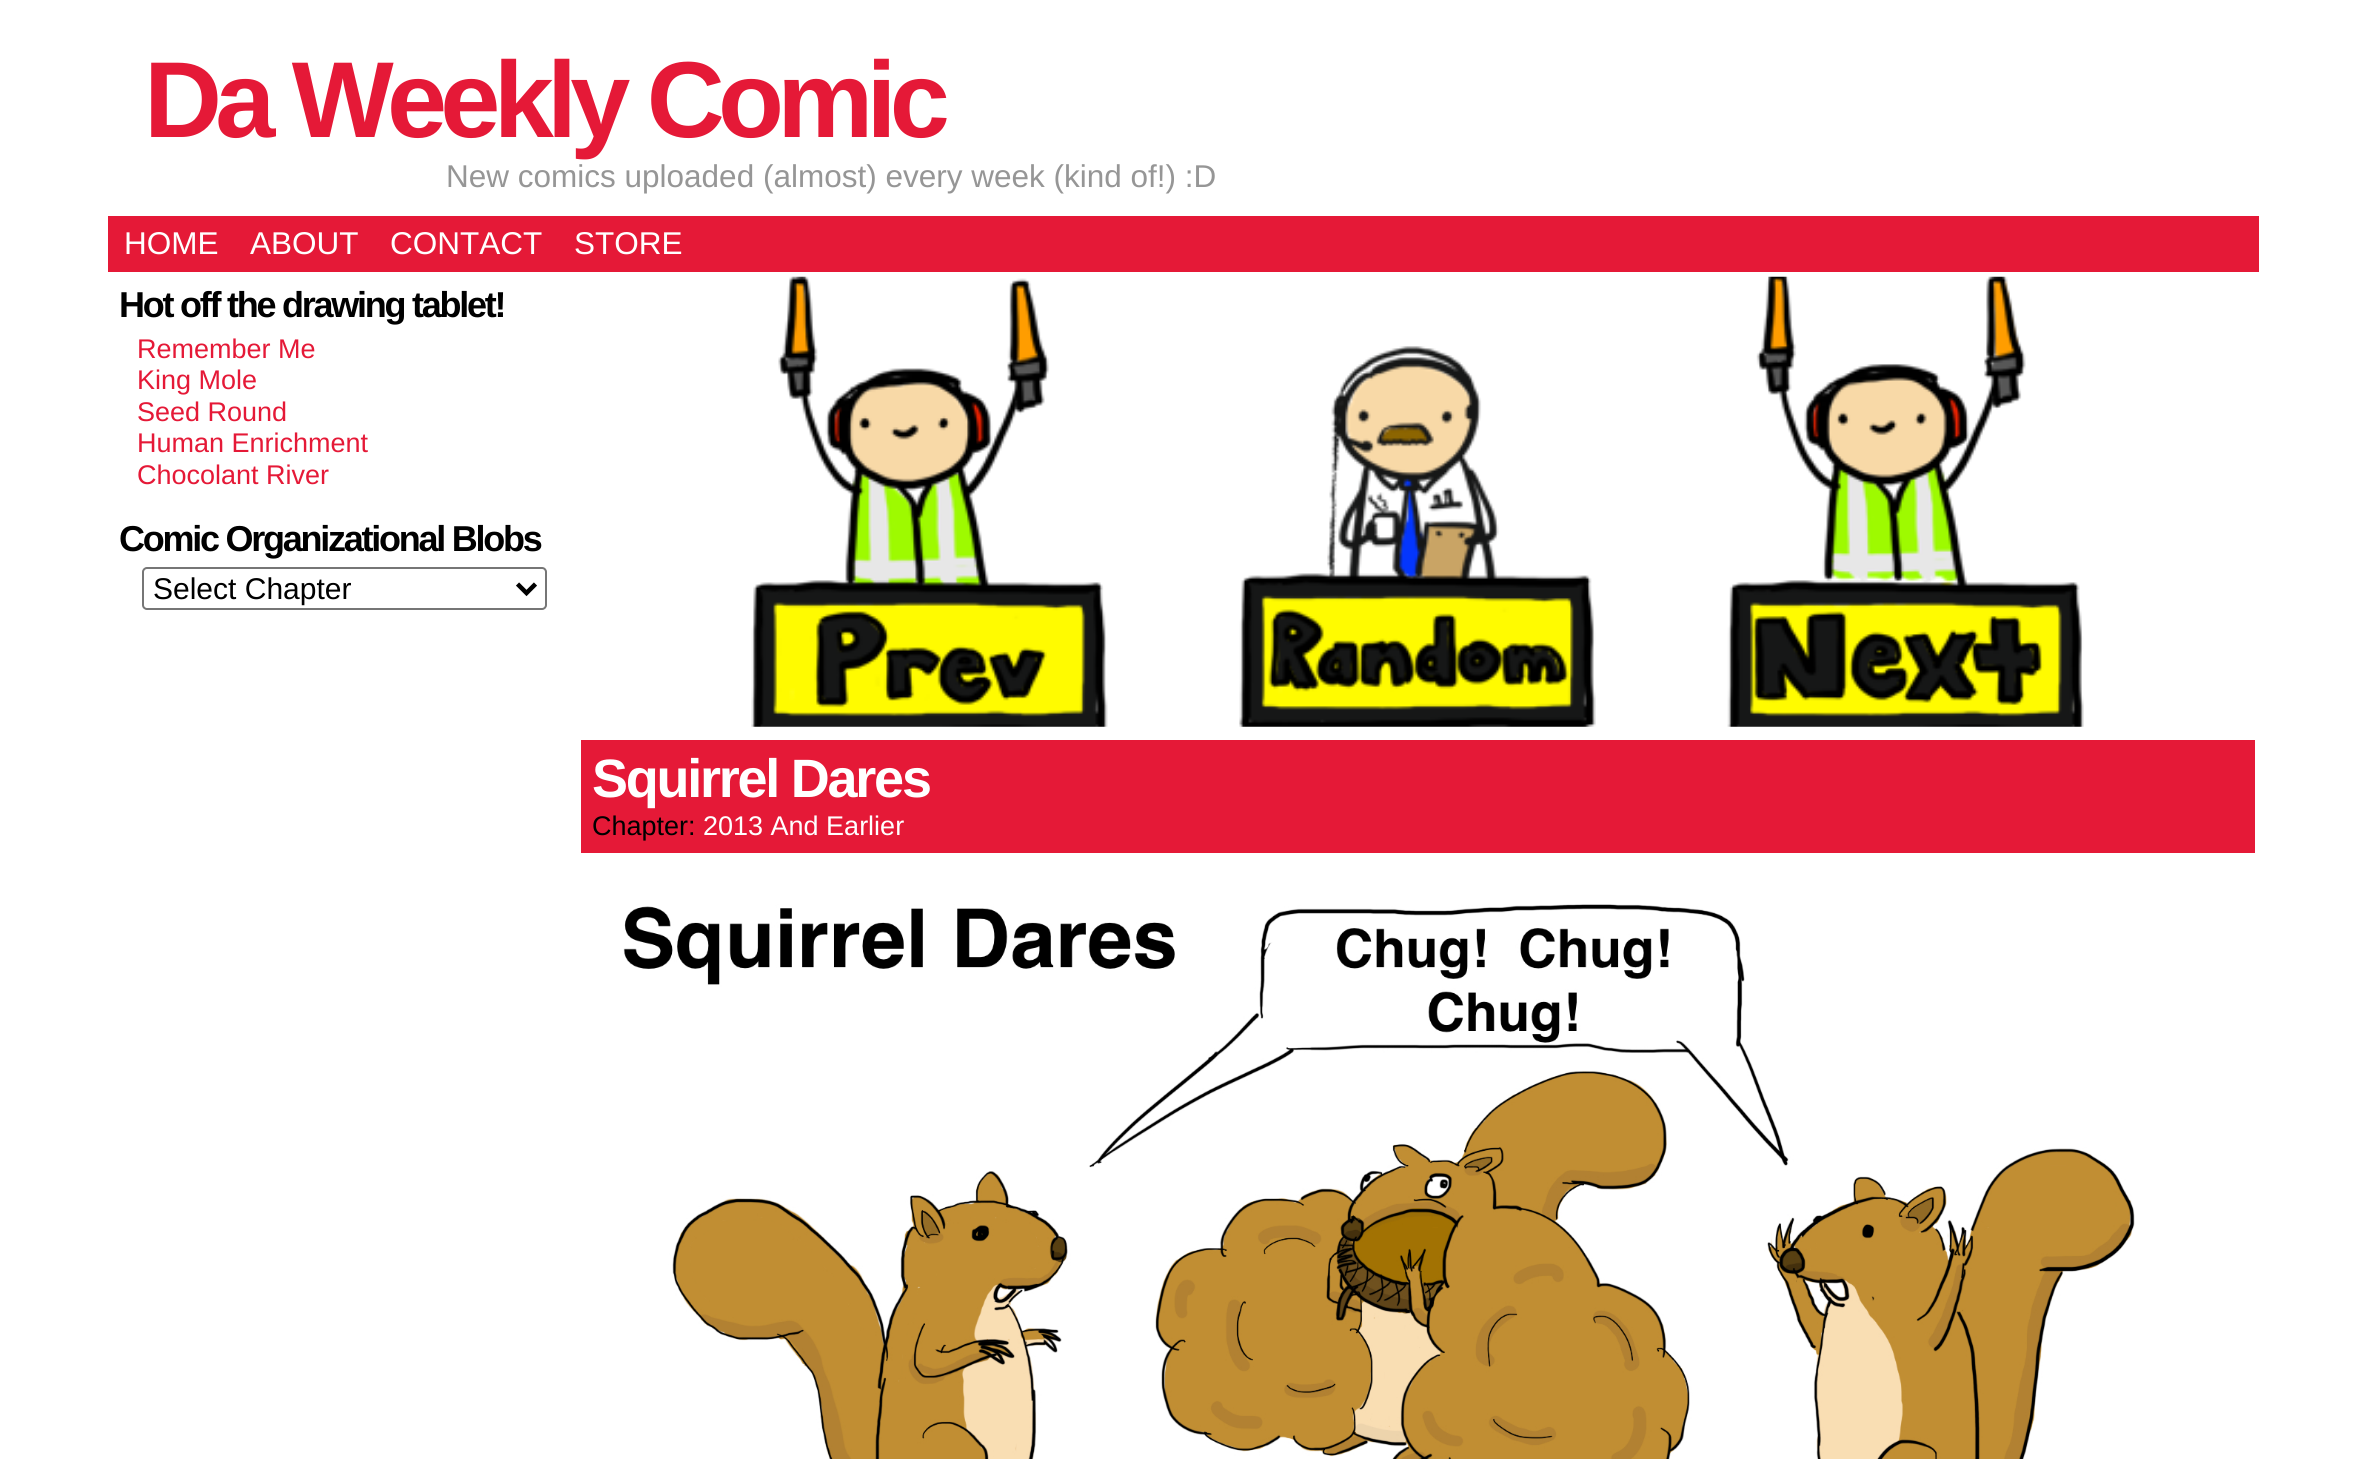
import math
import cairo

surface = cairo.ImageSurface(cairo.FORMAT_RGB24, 2365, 1459)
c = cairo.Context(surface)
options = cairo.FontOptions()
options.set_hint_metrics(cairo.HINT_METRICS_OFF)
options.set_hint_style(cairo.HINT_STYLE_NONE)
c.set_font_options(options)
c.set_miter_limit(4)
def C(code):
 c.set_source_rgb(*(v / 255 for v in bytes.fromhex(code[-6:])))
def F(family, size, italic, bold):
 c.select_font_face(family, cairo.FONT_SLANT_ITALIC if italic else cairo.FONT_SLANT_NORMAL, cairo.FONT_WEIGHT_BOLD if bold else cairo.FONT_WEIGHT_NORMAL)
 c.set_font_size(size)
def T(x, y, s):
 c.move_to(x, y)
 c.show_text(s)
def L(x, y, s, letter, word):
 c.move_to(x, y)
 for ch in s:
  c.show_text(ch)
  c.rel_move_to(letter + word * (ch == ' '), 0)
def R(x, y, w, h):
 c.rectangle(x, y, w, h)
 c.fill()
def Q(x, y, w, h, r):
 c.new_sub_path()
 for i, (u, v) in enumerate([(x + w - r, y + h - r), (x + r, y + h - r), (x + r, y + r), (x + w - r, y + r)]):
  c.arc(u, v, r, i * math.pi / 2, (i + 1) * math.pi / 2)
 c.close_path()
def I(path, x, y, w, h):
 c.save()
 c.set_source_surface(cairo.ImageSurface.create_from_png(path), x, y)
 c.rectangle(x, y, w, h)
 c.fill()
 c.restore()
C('ffffff')
c.paint()
F('Liberation Sans',108,0,1)
C('e51937')
L(144,137,'Da Weekly Comic',-6.75,0)
F('Liberation Sans',31.5,0,0)
C('969696')
T(446,187,'New comics uploaded (almost) every week (kind of!) :D')
C('e51937')
R(108,216,2151,56)
C('ffffff')
T(124,254,'HOME')
T(250,254,'ABOUT')
T(390,254,'CONTACT')
T(574,254,'STORE')
F('Liberation Sans',36,0,1)
C('000000')
L(119,317,'Hot off the drawing tablet!',-2.25,0)
F('Liberation Sans',27,0,0)
C('e51937')
T(137,358,'Remember Me')
T(137,389,'King Mole')
T(137,421,'Seed Round')
T(137,452,'Human Enrichment')
T(137,484,'Chocolant River')
F('Liberation Sans',36,0,1)
C('000000')
L(119,551,'Comic Organizational Blobs',-2.25,0)
Q(143,568,403,41,4)
C('767676')
c.stroke()
c.new_path()
c.move_to(517.5,584)
c.line_to(526.5,593)
c.line_to(535.5,584)
C('000000')
c.set_line_width(4.5)
c.stroke()
F('Liberation Sans',30,0,0)
T(153,599,'Select Chapter')
I('1.png',751,276,357,451)
I('2.png',1239,346,357,381)
I('3.png',1727,276,357,451)
C('e51937')
R(581,740,1674,113)
F('Liberation Sans',54,0,1)
C('ffffff')
L(592,797,'Squirrel Dares',-2.25,0)
F('Liberation Sans',27,0,0)
C('000000')
T(592,835,'Chapter:')
C('ffffff')
T(703,835,'2013 And Earlier')
I('4.png',623,904,1512,555)
surface.write_to_png('o.png')
